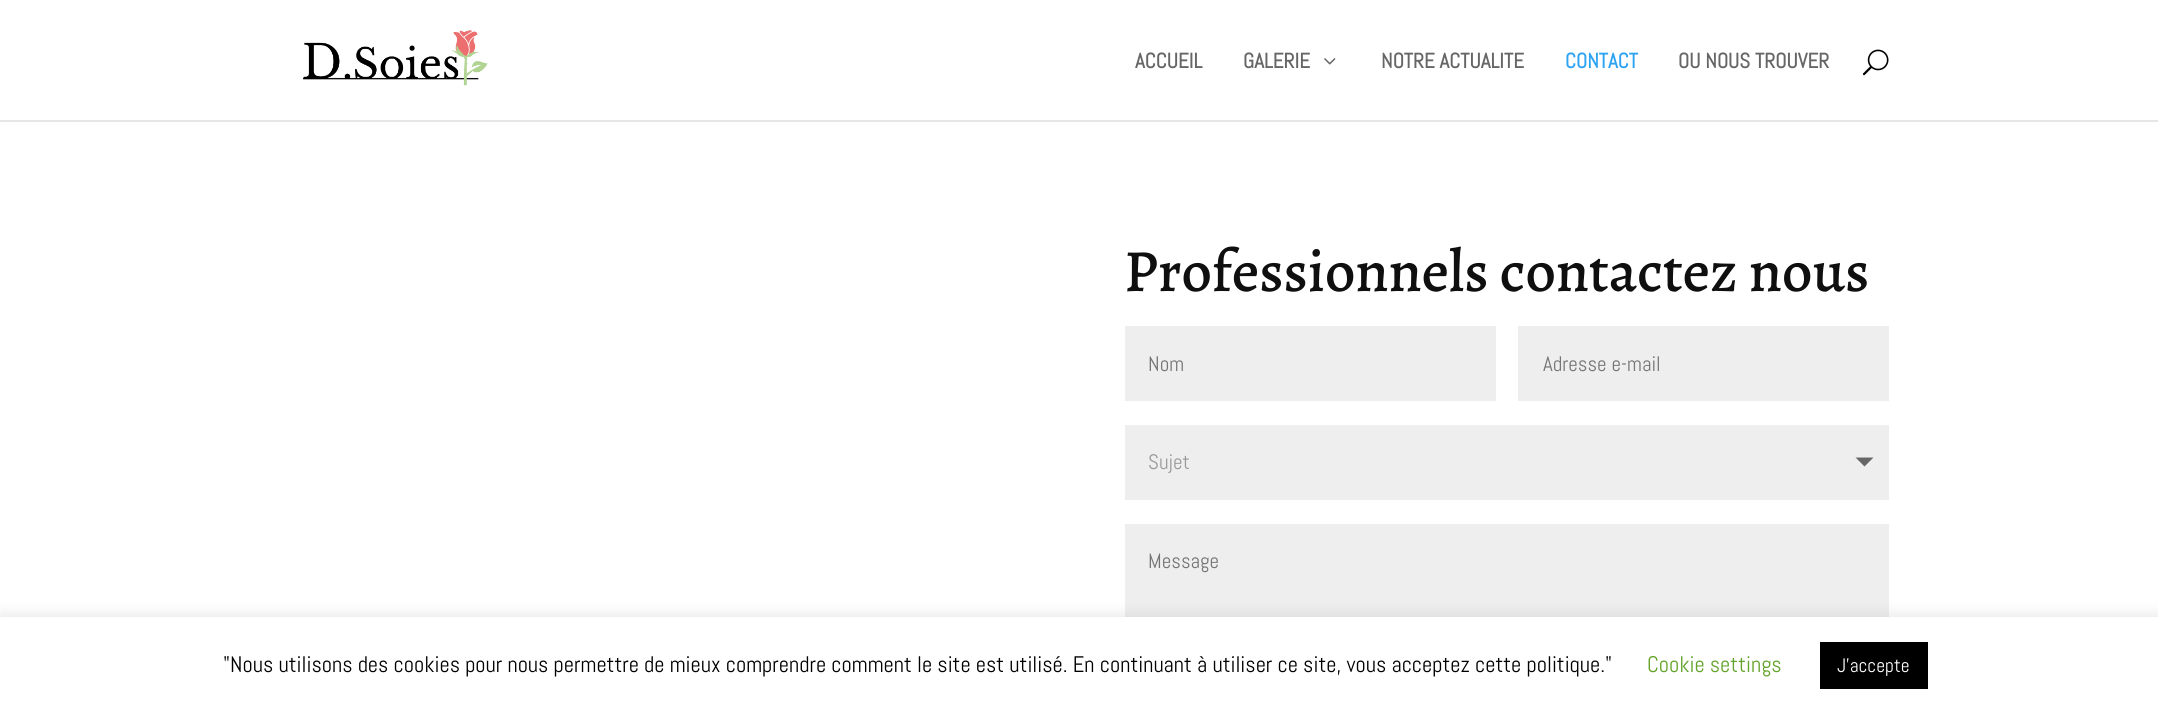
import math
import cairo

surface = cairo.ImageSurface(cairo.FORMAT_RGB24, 2158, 714)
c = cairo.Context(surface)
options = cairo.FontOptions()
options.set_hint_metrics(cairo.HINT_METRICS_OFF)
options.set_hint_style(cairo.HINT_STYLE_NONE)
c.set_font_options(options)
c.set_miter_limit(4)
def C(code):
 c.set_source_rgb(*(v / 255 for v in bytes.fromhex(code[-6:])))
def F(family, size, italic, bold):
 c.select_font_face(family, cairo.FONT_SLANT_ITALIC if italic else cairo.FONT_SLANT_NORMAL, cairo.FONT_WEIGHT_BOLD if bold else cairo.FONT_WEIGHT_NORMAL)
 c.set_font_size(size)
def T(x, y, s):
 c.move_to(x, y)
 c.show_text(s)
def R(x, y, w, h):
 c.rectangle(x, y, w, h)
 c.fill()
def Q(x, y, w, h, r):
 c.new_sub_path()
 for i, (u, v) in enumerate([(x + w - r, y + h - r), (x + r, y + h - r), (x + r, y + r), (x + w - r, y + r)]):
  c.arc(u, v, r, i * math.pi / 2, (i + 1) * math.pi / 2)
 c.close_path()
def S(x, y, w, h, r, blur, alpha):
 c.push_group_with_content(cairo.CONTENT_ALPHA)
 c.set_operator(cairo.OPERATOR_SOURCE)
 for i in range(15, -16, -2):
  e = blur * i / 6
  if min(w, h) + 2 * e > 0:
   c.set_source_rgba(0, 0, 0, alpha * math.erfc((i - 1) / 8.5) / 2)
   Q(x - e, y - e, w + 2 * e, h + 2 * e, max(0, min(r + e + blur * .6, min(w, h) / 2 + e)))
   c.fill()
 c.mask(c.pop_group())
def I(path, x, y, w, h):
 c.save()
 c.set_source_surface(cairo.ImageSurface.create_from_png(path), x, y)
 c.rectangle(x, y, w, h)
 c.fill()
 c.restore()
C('ffffff')
c.paint()
C('e6e6e6')
c.new_path()
c.move_to(0,120)
c.line_to(0,122)
c.line_to(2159,122)
c.line_to(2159,2)
c.line_to(2158,2)
c.line_to(2158,120)
c.close_path()
c.fill()
I('1.png',303,30,185,56)
F('Abel',21,0,1)
C('666666')
T(1135,68,'ACCUEIL')
T(1243,68,'GALERIE')
I('2.png',1324,58,12,7)
T(1381,68,'NOTRE ACTUALITE')
C('2ea3f2')
T(1565,68,'CONTACT')
C('666666')
T(1678,68,'OU NOUS TROUVER')
I('3.png',1862,49,27,27)
F('Alegreya Medium',60,0,0)
C('0f0f0f')
T(1124,291,'Professionnels contactez nous')
C('eeeeee')
R(1125,326,371,75)
F('Abel',21,0,0)
C('757575')
T(1148,371,'Nom')
C('eeeeee')
R(1518,326,371,75)
C('757575')
T(1543,371,'Adresse e-mail')
C('eeeeee')
R(1125,425,764,75)
C('999999')
T(1148,469,'Sujet')
C('666666')
c.new_path()
c.move_to(1855.5,457.5)
c.line_to(1873.5,457.5)
c.line_to(1864.5,466.5)
c.close_path()
c.fill()
C('eeeeee')
R(1125,524,764,93)
C('757575')
T(1148,568,'Message')
C('acabab')
S(0,615,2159,98,0,7.5,.3)
C('ffffff')
R(0,617,2158,97)
F('Abel',22.5,0,0)
C('000000')
T(223,672,'"Nous utilisons des cookies pour nous permettre de mieux comprendre comment le site est utilisé. En continuant à utiliser ce site, vous acceptez cette politique."')
C('62a329')
T(1647,672,'Cookie settings')
C('000000')
R(1820,642,108,47)
F('Abel',19.5,0,0)
C('ffffff')
T(1837,672,'J\'accepte')
surface.write_to_png('o.png')
